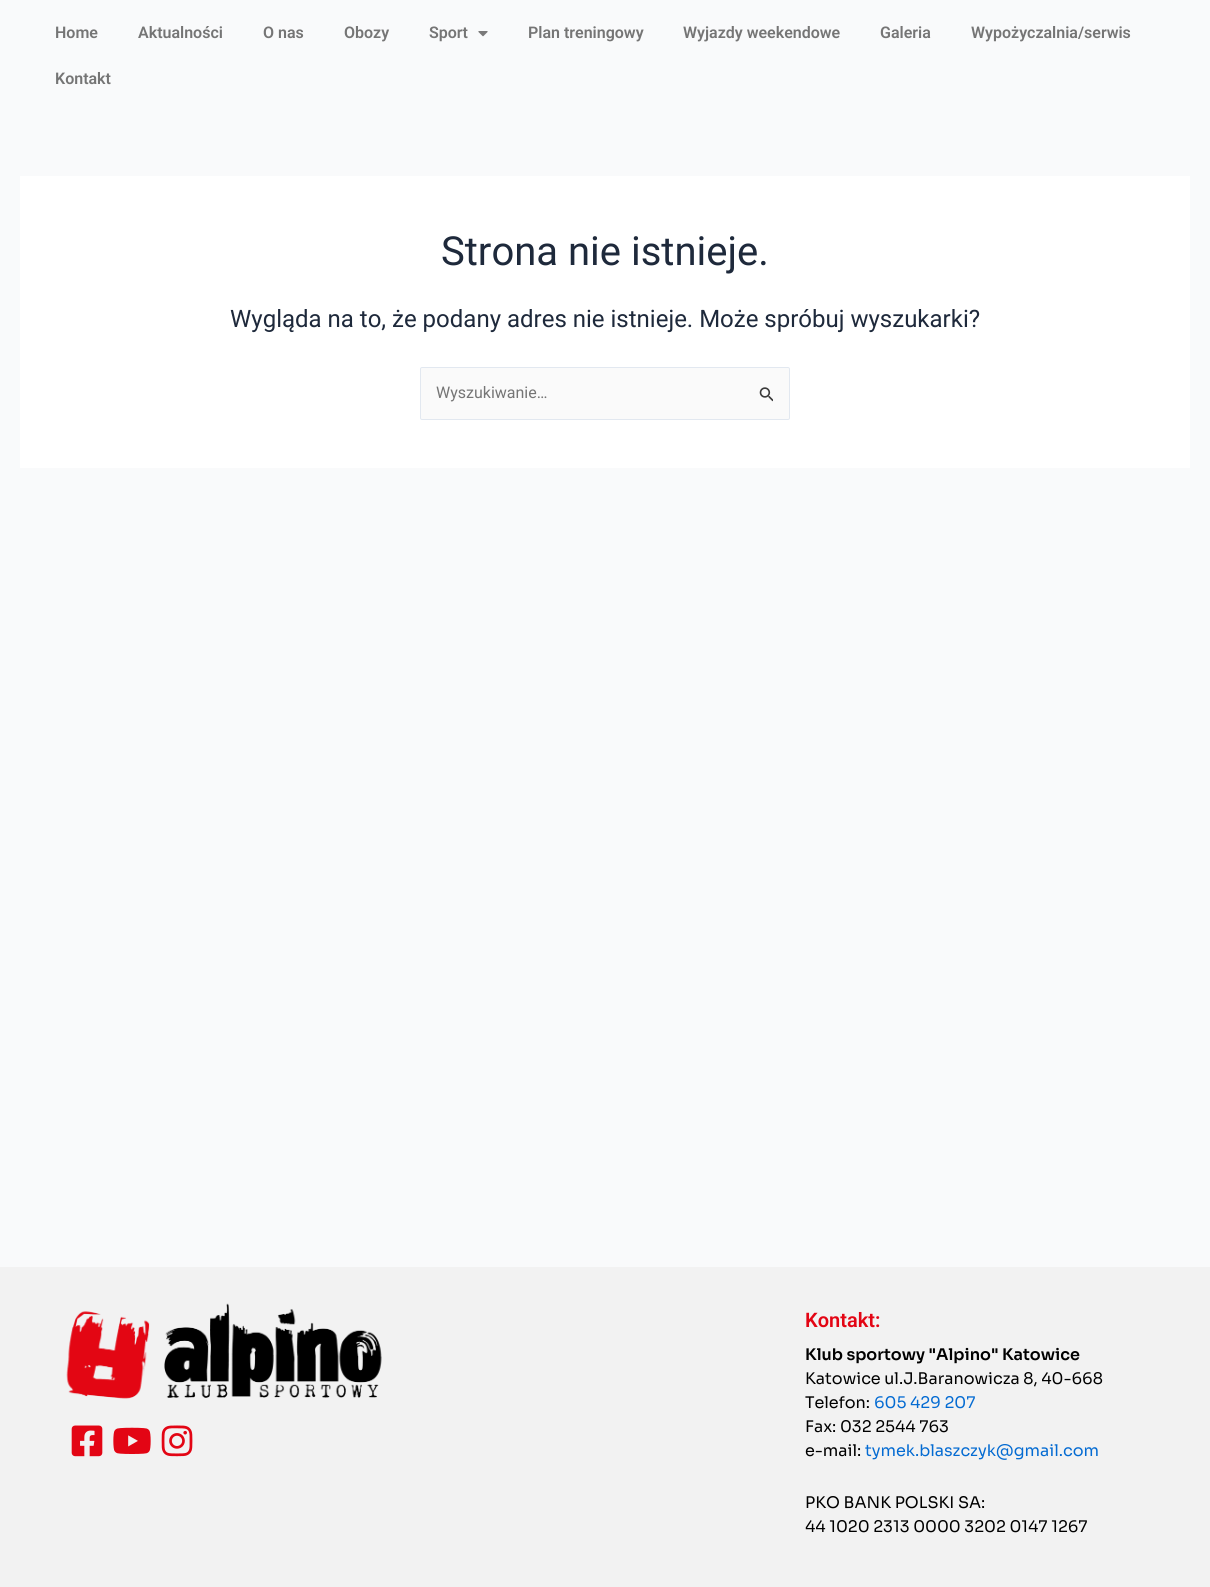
import math
import cairo

surface = cairo.ImageSurface(cairo.FORMAT_RGB24, 1210, 1587)
c = cairo.Context(surface)
options = cairo.FontOptions()
options.set_hint_metrics(cairo.HINT_METRICS_OFF)
options.set_hint_style(cairo.HINT_STYLE_NONE)
c.set_font_options(options)
c.set_miter_limit(4)
def C(code):
 c.set_source_rgb(*(v / 255 for v in bytes.fromhex(code[-6:])))
def F(family, size, italic, bold):
 c.select_font_face(family, cairo.FONT_SLANT_ITALIC if italic else cairo.FONT_SLANT_NORMAL, cairo.FONT_WEIGHT_BOLD if bold else cairo.FONT_WEIGHT_NORMAL)
 c.set_font_size(size)
def T(x, y, s):
 c.move_to(x, y)
 c.show_text(s)
def R(x, y, w, h):
 c.rectangle(x, y, w, h)
 c.fill()
def Q(x, y, w, h, r):
 c.new_sub_path()
 for i, (u, v) in enumerate([(x + w - r, y + h - r), (x + r, y + h - r), (x + r, y + r), (x + w - r, y + r)]):
  c.arc(u, v, r, i * math.pi / 2, (i + 1) * math.pi / 2)
 c.close_path()
def I(path, x, y, w, h):
 c.save()
 c.set_source_surface(cairo.ImageSurface.create_from_png(path), x, y)
 c.rectangle(x, y, w, h)
 c.fill()
 c.restore()
C('f9fafb')
c.paint()
F('Roboto SemiBold',16,0,0)
C('757575')
T(55,38,'Home')
T(138,38,'Aktualności')
T(263,38,'O nas')
T(344,38,'Obozy')
T(429,38,'Sport')
I('1.png',478,31,10,6)
T(528,38,'Plan treningowy')
T(683,38,'Wyjazdy weekendowe')
T(880,38,'Galeria')
T(971,38,'Wypożyczalnia/serwis')
T(55,84,'Kontakt')
C('ffffff')
R(20,176,1170,292)
F('Roboto',40,0,0)
C('1e293b')
T(441,265,'Strona nie istnieje.')
F('Roboto',24,0,0)
T(230,327,'Wygląda na to, że podany adres nie istnieje. Może spróbuj wyszukarki?')
C('fafafa')
Q(420.5,367.5,369,52,1.5)
c.fill_preserve()
C('e2e8f0')
c.set_line_width(1)
c.stroke()
F('Roboto',16,0,0)
C('757575')
T(436,398,'Wyszukiwanie…')
I('2.png',759,387,14,15)
C('f2f2f2')
R(0,1267,1210,320)
I('3.png',66,1303,316,96)
I('4.png',71,1425,32,32)
I('5.png',113,1427,38,27)
I('6.png',161,1425,32,32)
F('Roboto SemiBold',20,0,0)
C('e30514')
T(805,1327,'Kontakt:')
F('Sora SemiBold',16,0,0)
C('000000')
T(805,1360,'Klub sportowy "Alpino" Katowice')
F('Sora',16,0,0)
T(805,1384,'Katowice ul.J.Baranowicza 8, 40-668')
T(805,1408,'Telefon:')
C('046bd2')
T(874,1408,'605 429 207')
C('000000')
T(805,1432,'Fax: 032 2544 763')
T(805,1456,'e-mail:')
C('046bd2')
T(865,1456,'tymek.blaszczyk@gmail.com')
C('000000')
T(805,1508,'PKO BANK POLSKI SA:')
T(805,1532,'44 1020 2313 0000 3202 0147 1267')
surface.write_to_png('o.png')
